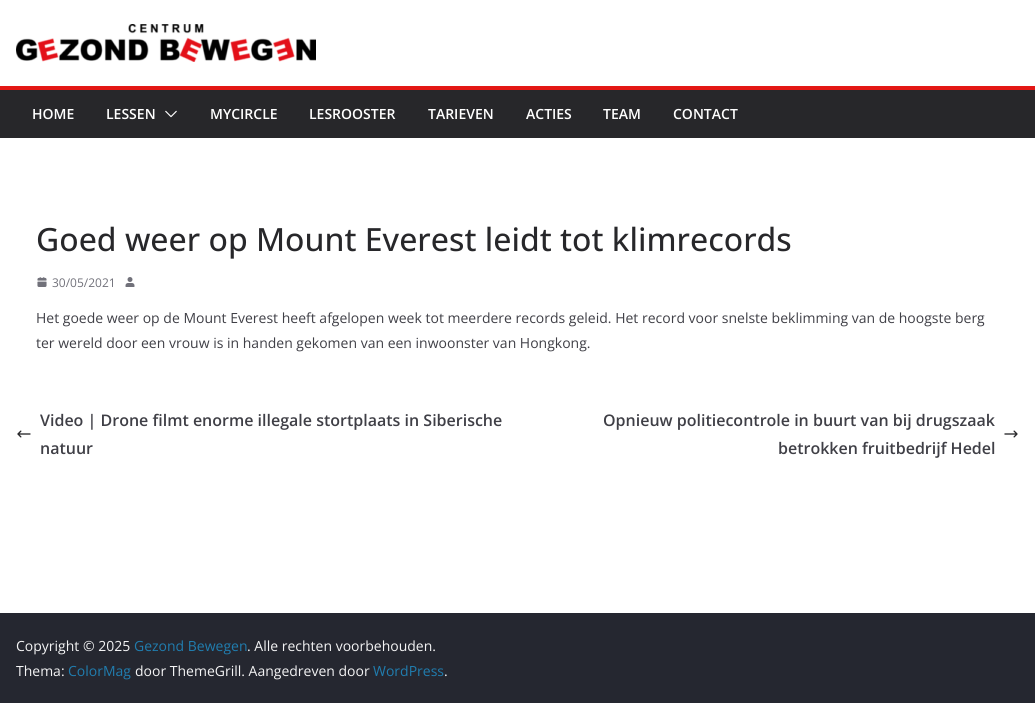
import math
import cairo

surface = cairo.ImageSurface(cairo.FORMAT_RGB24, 1035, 703)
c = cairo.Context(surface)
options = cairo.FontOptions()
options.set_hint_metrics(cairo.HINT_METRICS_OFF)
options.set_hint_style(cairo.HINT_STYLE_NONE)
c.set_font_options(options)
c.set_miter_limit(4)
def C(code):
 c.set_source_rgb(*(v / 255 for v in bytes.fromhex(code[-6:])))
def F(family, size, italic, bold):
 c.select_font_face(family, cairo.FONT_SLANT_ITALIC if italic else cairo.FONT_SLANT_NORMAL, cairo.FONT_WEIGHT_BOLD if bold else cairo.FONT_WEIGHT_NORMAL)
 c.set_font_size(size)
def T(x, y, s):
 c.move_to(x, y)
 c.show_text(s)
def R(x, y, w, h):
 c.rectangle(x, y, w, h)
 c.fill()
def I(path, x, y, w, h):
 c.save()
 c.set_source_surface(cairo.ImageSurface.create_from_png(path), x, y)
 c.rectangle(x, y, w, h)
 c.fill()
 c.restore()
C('ffffff')
c.paint()
I('1.png',16,24,300,38)
C('27272a')
R(0,90,1035,48)
C('e31715')
R(0,86,1035,4)
F('Open Sans SemiBold',14,0,0)
C('ffffff')
T(32,119,'HOME')
T(106,119,'LESSEN')
I('2.png',165,110,12,8)
T(210,119,'MYCIRCLE')
T(309,119,'LESROOSTER')
T(428,119,'TARIEVEN')
T(526,119,'ACTIES')
T(603,119,'TEAM')
T(673,119,'CONTACT')
F('Open Sans Medium',32,0,0)
C('27272a')
T(36,251,'Goed weer op Mount Everest leidt tot klimrecords')
I('3.png',37,277,10,10)
F('Open Sans',12,0,0)
C('71717a')
T(52,287,'30/05/2021')
I('4.png',125,277,10,10)
F('Open Sans',14,0,0)
C('3f3f46')
T(36,323,'Het goede weer op de Mount Everest heeft afgelopen week tot meerdere records geleid. Het record voor snelste beklimming van de hoogste berg')
T(36,348,'ter wereld door een vrouw is in handen gekomen van een inwoonster van Hongkong.')
F('Open Sans SemiBold',16,0,0)
T(40,426,'Video | Drone filmt enorme illegale stortplaats in Siberische')
I('5.png',17,430,14,8)
T(40,454,'natuur')
T(603,426,'Opnieuw politiecontrole in buurt van bij drugszaak')
I('6.png',1004,430,14,8)
T(778,454,'betrokken fruitbedrijf Hedel')
C('252730')
R(0,613,1035,90)
F('Open Sans',14,0,0)
C('f4f4f5')
T(16,651,'Copyright © 2025')
C('207daf')
T(134,651,'Gezond Bewegen')
C('f4f4f5')
T(247,651,'. Alle rechten voorbehouden.')
T(16,676,'Thema:')
C('207daf')
T(68,676,'ColorMag')
C('f4f4f5')
T(135,676,'door ThemeGrill. Aangedreven door')
C('207daf')
T(373,676,'WordPress')
C('f4f4f5')
T(444,676,'.')
surface.write_to_png('o.png')
